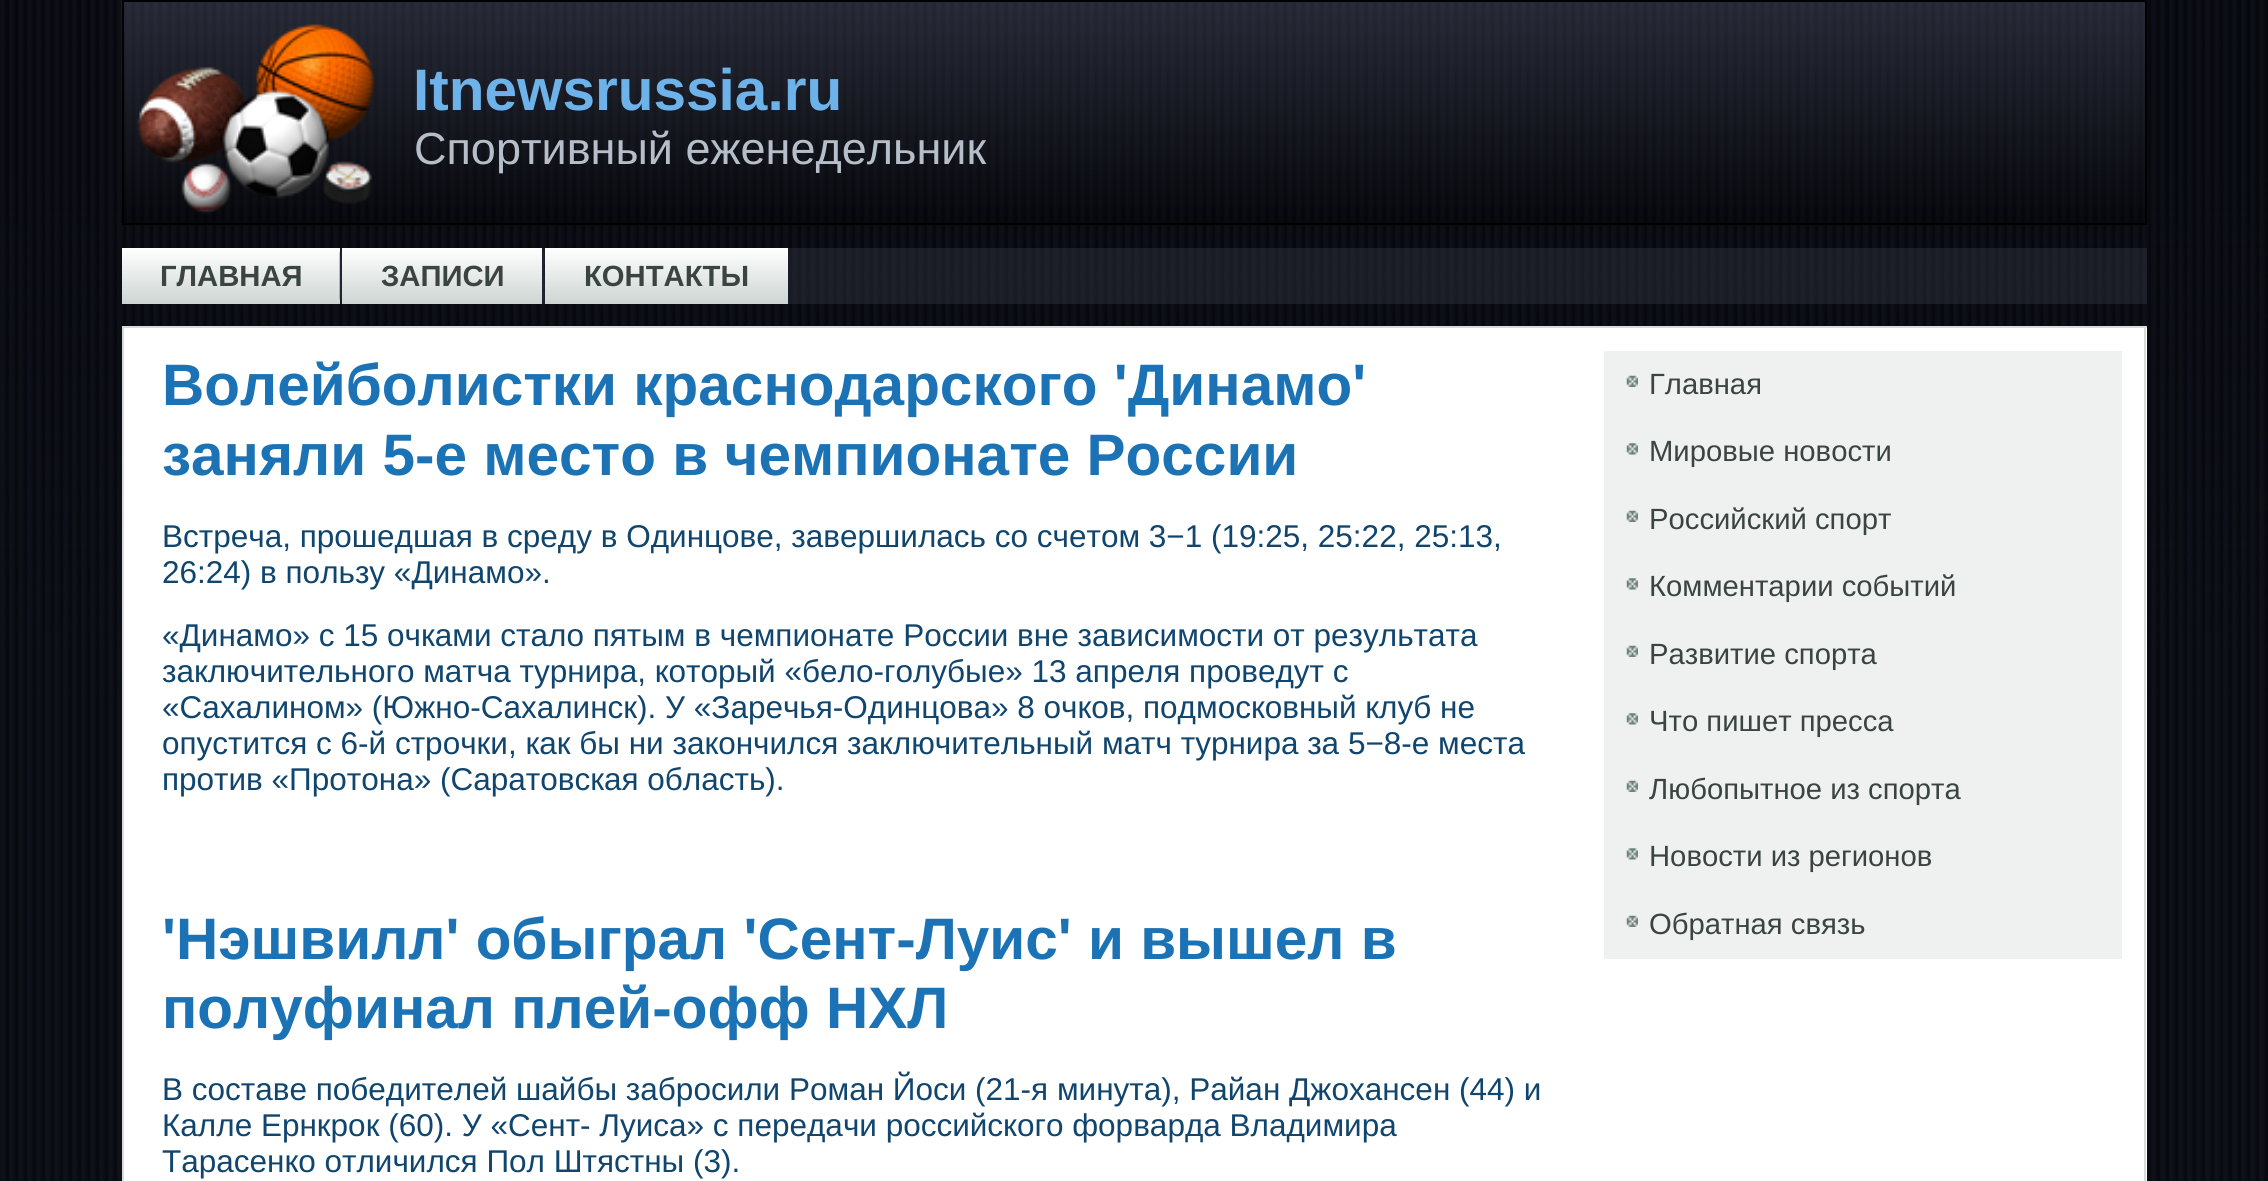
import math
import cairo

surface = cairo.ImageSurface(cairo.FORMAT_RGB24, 2268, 1181)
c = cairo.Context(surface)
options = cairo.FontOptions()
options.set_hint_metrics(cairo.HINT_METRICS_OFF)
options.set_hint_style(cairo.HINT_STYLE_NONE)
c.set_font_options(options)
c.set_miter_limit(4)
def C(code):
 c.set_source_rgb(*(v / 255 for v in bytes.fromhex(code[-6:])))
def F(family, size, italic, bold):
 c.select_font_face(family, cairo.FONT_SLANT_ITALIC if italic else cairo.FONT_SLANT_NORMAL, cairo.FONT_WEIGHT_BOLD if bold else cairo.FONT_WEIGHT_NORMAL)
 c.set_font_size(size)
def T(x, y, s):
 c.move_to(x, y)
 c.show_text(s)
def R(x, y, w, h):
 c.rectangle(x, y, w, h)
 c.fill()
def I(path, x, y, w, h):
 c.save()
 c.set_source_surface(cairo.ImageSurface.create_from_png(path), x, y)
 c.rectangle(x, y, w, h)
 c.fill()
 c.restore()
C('ffffff')
c.paint()
I('1.png',0,0,2268,1181)
I('2.png',121,0,2024,225)
c.rectangle(123,1,2023,223)
C('000000')
c.stroke()
F('Liberation Sans',58.5,0,1)
C('6db3e9')
T(413,110,'Itnewsrussia.ru')
F('Liberation Sans',45,0,0)
C('b6bfc9')
T(414,164,'Спортивный еженедельник')
c.set_source_rgba(0.263,0.275,0.337,0.3)
R(340,248,1807,56)
gradient = cairo.LinearGradient(231,248,231,304)
gradient.add_color_stop_rgba(0,1,1,1,1)
gradient.add_color_stop_rgba(1,0.804,0.835,0.824,1)
c.set_source(gradient)
R(122,248,218,56)
F('Liberation Sans',29.25,0,1)
C('3a4441')
T(160,286,'ГЛАВНАЯ')
I('3.png',339,251,3,49)
gradient = cairo.LinearGradient(442,248,442,304)
gradient.add_color_stop_rgba(0,1,1,1,1)
gradient.add_color_stop_rgba(1,0.804,0.835,0.824,1)
c.set_source(gradient)
R(342,248,200,56)
C('3a4441')
T(381,286,'ЗАПИСИ')
I('4.png',542,253,2,46)
gradient = cairo.LinearGradient(666,248,666,304)
gradient.add_color_stop_rgba(0,1,1,1,1)
gradient.add_color_stop_rgba(1,0.804,0.835,0.824,1)
c.set_source(gradient)
R(545,248,243,56)
C('3a4441')
T(584,286,'КОНТАКТЫ')
C('ffffff')
R(124,328,2023,853)
C('d6dcda')
R(122,326,2025,2)
R(2144,326,2,855)
R(122,326,2,855)
F('Liberation Sans',58.5,0,1)
C('1b72b4')
T(162,405,'Волейболистки краснодарского \'Динамо\'')
T(162,475,'заняли 5-е место в чемпионате России')
F('Liberation Sans',31.5,0,0)
C('10456e')
T(162,547,'Встреча, прошедшая в среду в Одинцове, завершилась со счетом 3−1 (19:25, 25:22, 25:13,')
T(162,583,'26:24) в пользу «Динамо».')
T(162,646,'«Динамо» с 15 очками стало пятым в чемпионате России вне зависимости от результата')
T(162,682,'заключительного матча турнира, который «бело-голубые» 13 апреля проведут с')
T(162,718,'«Сахалином» (Южно-Сахалинск). У «Заречья-Одинцова» 8 очков, подмосковный клуб не')
T(162,754,'опустится с 6-й строчки, как бы ни закончился заключительный матч турнира за 5−8-е места')
T(162,790,'против «Протона» (Саратовская область).')
F('Liberation Sans',58.5,0,1)
C('1b72b4')
T(162,959,'\'Нэшвилл\' обыграл \'Сент-Луис\' и вышел в')
T(162,1028,'полуфинал плей-офф НХЛ')
F('Liberation Sans',31.5,0,0)
C('10456e')
T(162,1100,'В составе победителей шайбы забросили Роман Йоси (21-я минута), Райан Джохансен (44) и')
T(162,1136,'Калле Ернкрок (60). У «Сент- Луиса» с передачи российского форварда Владимира')
T(162,1172,'Тарасенко отличился Пол Штястны (3).')
C('eff1f0')
R(1604,351,518,608)
I('5.png',1626,375,12,12)
F('Liberation Sans',29.25,0,0)
C('3a4441')
T(1649,394,'Главная')
I('6.png',1626,443,12,12)
T(1649,461,'Мировые новости')
I('5.png',1626,510,12,12)
T(1649,529,'Российский спорт')
I('7.png',1626,578,12,12)
T(1649,596,'Комментарии событий')
I('5.png',1626,645,12,12)
T(1649,664,'Развитие спорта')
I('6.png',1626,713,12,12)
T(1649,731,'Что пишет пресса')
I('5.png',1626,780,12,12)
T(1649,799,'Любопытное из спорта')
I('6.png',1626,848,12,12)
T(1649,866,'Новости из регионов')
I('5.png',1626,915,12,12)
T(1649,934,'Обратная связь')
surface.write_to_png('o.png')
